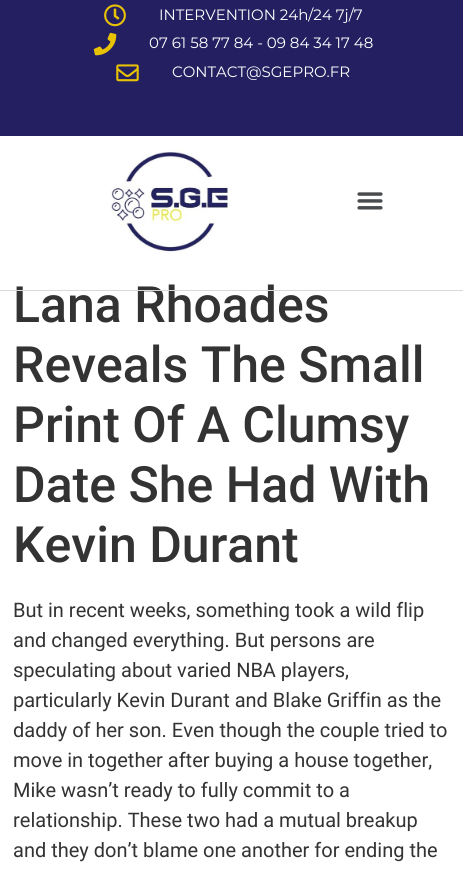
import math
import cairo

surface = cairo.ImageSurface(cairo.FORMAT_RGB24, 463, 876)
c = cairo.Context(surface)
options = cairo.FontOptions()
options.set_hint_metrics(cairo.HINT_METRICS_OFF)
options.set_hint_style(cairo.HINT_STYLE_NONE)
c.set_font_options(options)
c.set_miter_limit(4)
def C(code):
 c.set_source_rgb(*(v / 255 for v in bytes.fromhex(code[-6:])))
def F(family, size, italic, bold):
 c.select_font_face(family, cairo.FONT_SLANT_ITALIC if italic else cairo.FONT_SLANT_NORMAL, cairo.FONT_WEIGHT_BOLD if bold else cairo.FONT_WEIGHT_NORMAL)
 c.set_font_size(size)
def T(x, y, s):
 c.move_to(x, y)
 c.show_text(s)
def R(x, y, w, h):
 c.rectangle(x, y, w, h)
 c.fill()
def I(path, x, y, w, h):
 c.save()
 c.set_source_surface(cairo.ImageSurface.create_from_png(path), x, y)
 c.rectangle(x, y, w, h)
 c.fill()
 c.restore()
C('ffffff')
c.paint()
C('241f61')
R(0,0,463,136)
I('1.png',104,4,22,23)
F('Montserrat',15,0,0)
C('ffffff')
T(159,20,'INTERVENTION 24h/24 7j/7')
I('2.png',93,32,24,24)
T(149,48,'07 61 58 77 84 - 09 84 34 17 48')
I('3.png',116,64,23,18)
T(172,77,'CONTACT@SGEPRO.FR')
F('Roboto Medium',50,0,0)
C('333333')
T(13,322,'Lana Rhoades')
C('d8d8d8')
R(0,290,463,1)
I('4.png',110,149,119,104)
I('5.png',357,192,26,18)
C('333333')
T(13,382,'Reveals The Small')
T(13,442,'Print Of A Clumsy')
T(13,502,'Date She Had With')
T(13,562,'Kevin Durant')
F('Roboto',20,0,0)
T(13,617,'But in recent weeks, something took a wild flip')
T(13,647,'and changed everything. But persons are')
T(13,677,'speculating about varied NBA players,')
T(13,707,'particularly Kevin Durant and Blake Griffin as the')
T(13,737,'daddy of her son. Even though the couple tried to')
T(13,767,'move in together after buying a house together,')
T(13,797,'Mike wasn’t ready to fully commit to a')
T(13,827,'relationship. These two had a mutual breakup')
T(13,857,'and they don’t blame one another for ending the')
surface.write_to_png('o.png')
